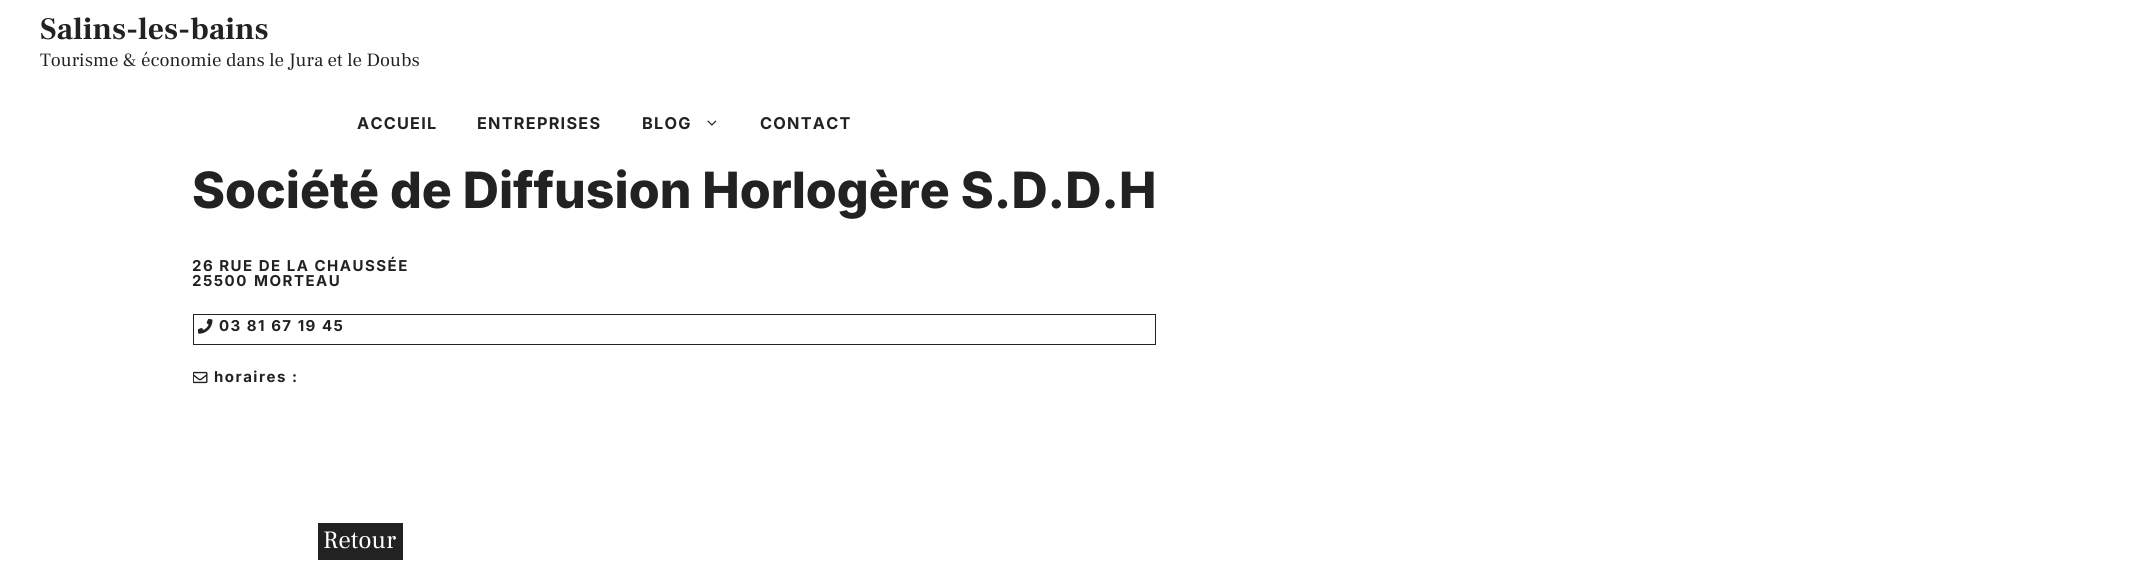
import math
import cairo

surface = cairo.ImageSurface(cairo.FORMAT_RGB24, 2133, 580)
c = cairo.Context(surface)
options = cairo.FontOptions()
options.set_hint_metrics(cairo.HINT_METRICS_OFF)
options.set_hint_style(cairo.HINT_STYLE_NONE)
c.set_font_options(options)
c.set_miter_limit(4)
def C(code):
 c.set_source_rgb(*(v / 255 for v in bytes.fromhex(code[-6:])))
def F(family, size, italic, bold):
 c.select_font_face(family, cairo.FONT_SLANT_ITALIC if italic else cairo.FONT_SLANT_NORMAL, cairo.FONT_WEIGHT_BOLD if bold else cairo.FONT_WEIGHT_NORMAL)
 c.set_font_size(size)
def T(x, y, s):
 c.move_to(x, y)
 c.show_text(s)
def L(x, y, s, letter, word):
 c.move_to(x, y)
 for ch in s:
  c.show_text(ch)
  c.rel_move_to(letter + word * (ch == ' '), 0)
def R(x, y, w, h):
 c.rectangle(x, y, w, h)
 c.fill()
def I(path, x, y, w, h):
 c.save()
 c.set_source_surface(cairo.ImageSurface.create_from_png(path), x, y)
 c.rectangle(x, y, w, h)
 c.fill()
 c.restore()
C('ffffff')
c.paint()
F('Frank Ruhl Libre',31.25,0,1)
C('222222')
T(40,39,'Salins-les-bains')
F('Frank Ruhl Libre',18.75,0,0)
T(40,66,'Tourisme & économie dans le Jura et le Doubs')
F('Inter',16.25,0,1)
L(357,129,'ACCUEIL',1.25,0)
L(477,129,'ENTREPRISES',1.25,0)
L(642,129,'BLOG',1.25,0)
I('1.png',707,120,10,6)
L(760,129,'CONTACT',1.25,0)
F('Inter ExtraBold',50,0,0)
T(192,208,'Société de Diffusion Horlogère S.D.D.H')
F('Inter',15,0,1)
L(192,271,'26 RUE DE LA CHAUSSÉE',1.5,0)
L(192,286,'25500',1.5,0)
L(254,286,'MORTEAU',1.5,0)
c.rectangle(193.5,314.5,962,30)
c.set_line_width(1)
c.stroke()
I('2.png',198,319,15,15)
L(219,331,'03 81 67 19 45',1.5,0)
I('3.png',193,371,15,13)
L(214,382,'horaires :',1.5,0)
R(318,523,85,37)
F('Frank Ruhl Libre',25,0,0)
C('ffffff')
T(323,548,'Retour')
surface.write_to_png('o.png')
